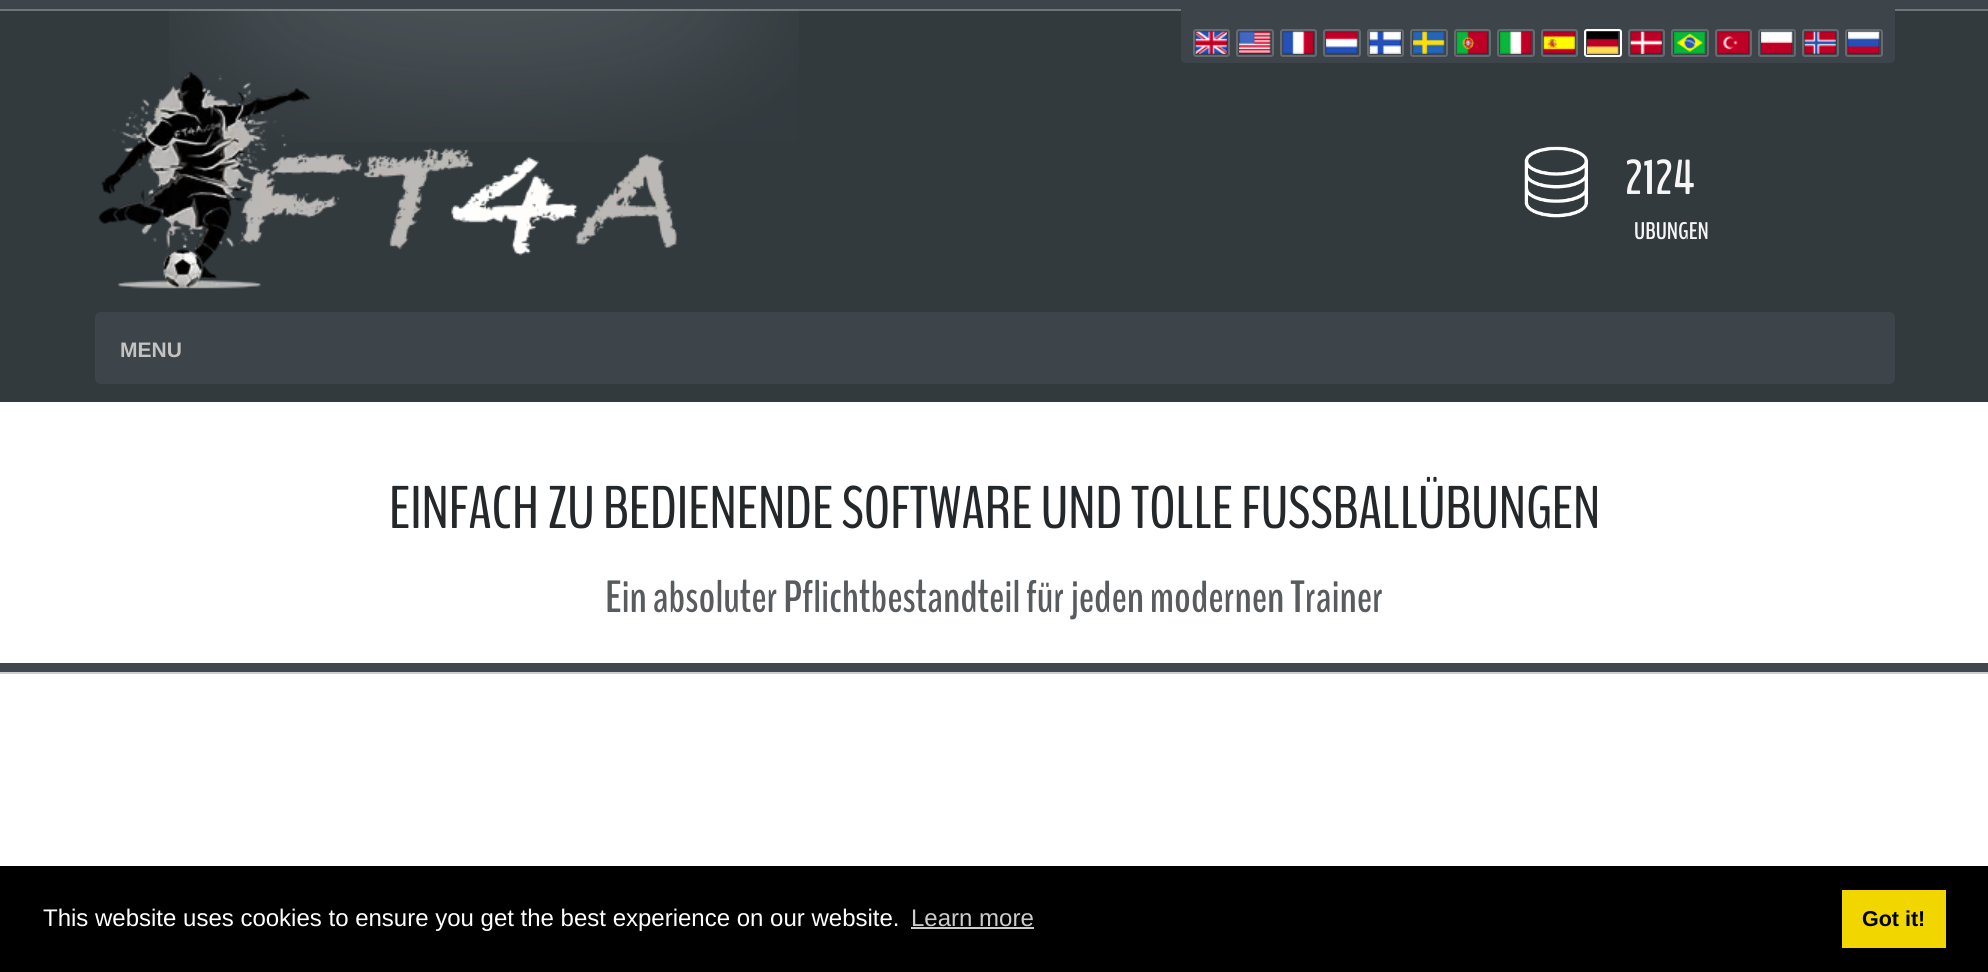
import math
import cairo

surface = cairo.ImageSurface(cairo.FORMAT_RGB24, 1988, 972)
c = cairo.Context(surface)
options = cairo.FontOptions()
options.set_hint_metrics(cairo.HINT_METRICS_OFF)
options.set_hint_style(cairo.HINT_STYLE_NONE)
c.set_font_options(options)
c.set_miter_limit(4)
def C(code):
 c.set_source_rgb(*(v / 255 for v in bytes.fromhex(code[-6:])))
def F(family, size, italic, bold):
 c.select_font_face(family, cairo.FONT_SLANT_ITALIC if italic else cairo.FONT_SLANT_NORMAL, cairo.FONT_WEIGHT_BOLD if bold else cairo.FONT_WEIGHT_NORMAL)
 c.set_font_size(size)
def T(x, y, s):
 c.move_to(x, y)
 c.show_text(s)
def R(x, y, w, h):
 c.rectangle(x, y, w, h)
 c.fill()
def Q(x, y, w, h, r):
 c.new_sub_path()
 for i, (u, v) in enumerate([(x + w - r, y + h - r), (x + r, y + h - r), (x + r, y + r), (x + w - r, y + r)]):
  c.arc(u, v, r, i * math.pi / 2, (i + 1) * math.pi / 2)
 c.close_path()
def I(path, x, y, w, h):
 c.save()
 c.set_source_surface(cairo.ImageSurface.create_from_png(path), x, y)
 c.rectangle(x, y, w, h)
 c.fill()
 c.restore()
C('3d454b')
c.paint()
C('333a3e')
R(0,9,1988,393)
I('1.png',169,9,630,133)
c.set_source_rgba(1,1,1,0.3)
R(0,9,1988,2)
C('3d454b')
c.new_path()
c.move_to(1181,0)
c.line_to(1895,0)
c.line_to(1895,58)
c.curve_to(1895,61,1893,63,1890,63)
c.line_to(1186,63)
c.curve_to(1183,63,1181,61,1181,58)
c.close_path()
c.fill()
Q(1194,30,35,26,2)
C('646a6f')
c.stroke()
Q(1237,30,36,26,2)
c.stroke()
Q(1281,30,35,26,2)
c.stroke()
Q(1324,30,36,26,2)
c.stroke()
Q(1368,30,35,26,2)
c.stroke()
Q(1411,30,36,26,2)
c.stroke()
Q(1455,30,35,26,2)
c.stroke()
Q(1498,30,36,26,2)
c.stroke()
Q(1542,30,35,26,2)
c.stroke()
Q(1585,30,36,26,2)
C('ffffff')
c.stroke()
Q(1629,30,35,26,2)
C('646a6f')
c.stroke()
Q(1672,30,36,26,2)
c.stroke()
Q(1716,30,35,26,2)
c.stroke()
Q(1759,30,36,26,2)
c.stroke()
Q(1803,30,35,26,2)
c.stroke()
Q(1846,30,36,26,2)
c.stroke()
I('2.png',1195,31,32,23)
I('3.png',1239,31,32,23)
I('4.png',1282,31,32,23)
I('5.png',1326,31,32,23)
I('6.png',1369,31,32,23)
I('7.png',1413,31,32,23)
I('8.png',1456,31,32,23)
I('9.png',1500,31,32,23)
I('10.png',1543,31,32,23)
I('11.png',1587,31,32,23)
I('12.png',1630,31,32,23)
I('13.png',1674,31,32,23)
I('14.png',1717,31,32,23)
I('15.png',1761,31,32,23)
I('16.png',1804,31,32,23)
I('17.png',1848,31,32,23)
I('18.png',98,71,579,218)
I('19.png',1524,146,64,72)
F('BenchNine',49,0,1)
C('f5f5f5')
T(1625,194,'2124')
F('BenchNine',24,0,1)
T(1634,239,'UBUNGEN')
C('3e454a')
Q(95,312,1800,72,6)
c.fill()
F('Liberation Sans',21,0,1)
C('c3c3c3')
T(120,357,'MENU')
C('ffffff')
R(0,402,1988,261)
C('40474e')
R(0,663,1988,9)
F('BenchNine',60,0,0)
C('25282a')
T(389,528,'EINFACH ZU BEDIENENDE SOFTWARE UND TOLLE FUSSBALLÜBUNGEN')
F('BenchNine',45,0,1)
C('595c5f')
T(605,612,'Ein absoluter Pflichtbestandteil für jeden modernen Trainer')
C('ffffff')
R(0,674,1988,192)
C('cdcdcd')
R(0,672,1988,2)
C('000000')
R(0,866,1988,106)
F('Liberation Sans',24,0,0)
C('ffffff')
T(43,926,'This website uses cookies to ensure you get the best experience on our website.')
C('cccccc')
T(911,926,'Learn more')
R(911,927,123,2)
C('f1d600')
R(1842,890,104,58)
F('Liberation Sans',21.5,0,1)
C('000000')
T(1862,926,'Got it!')
surface.write_to_png('o.png')
